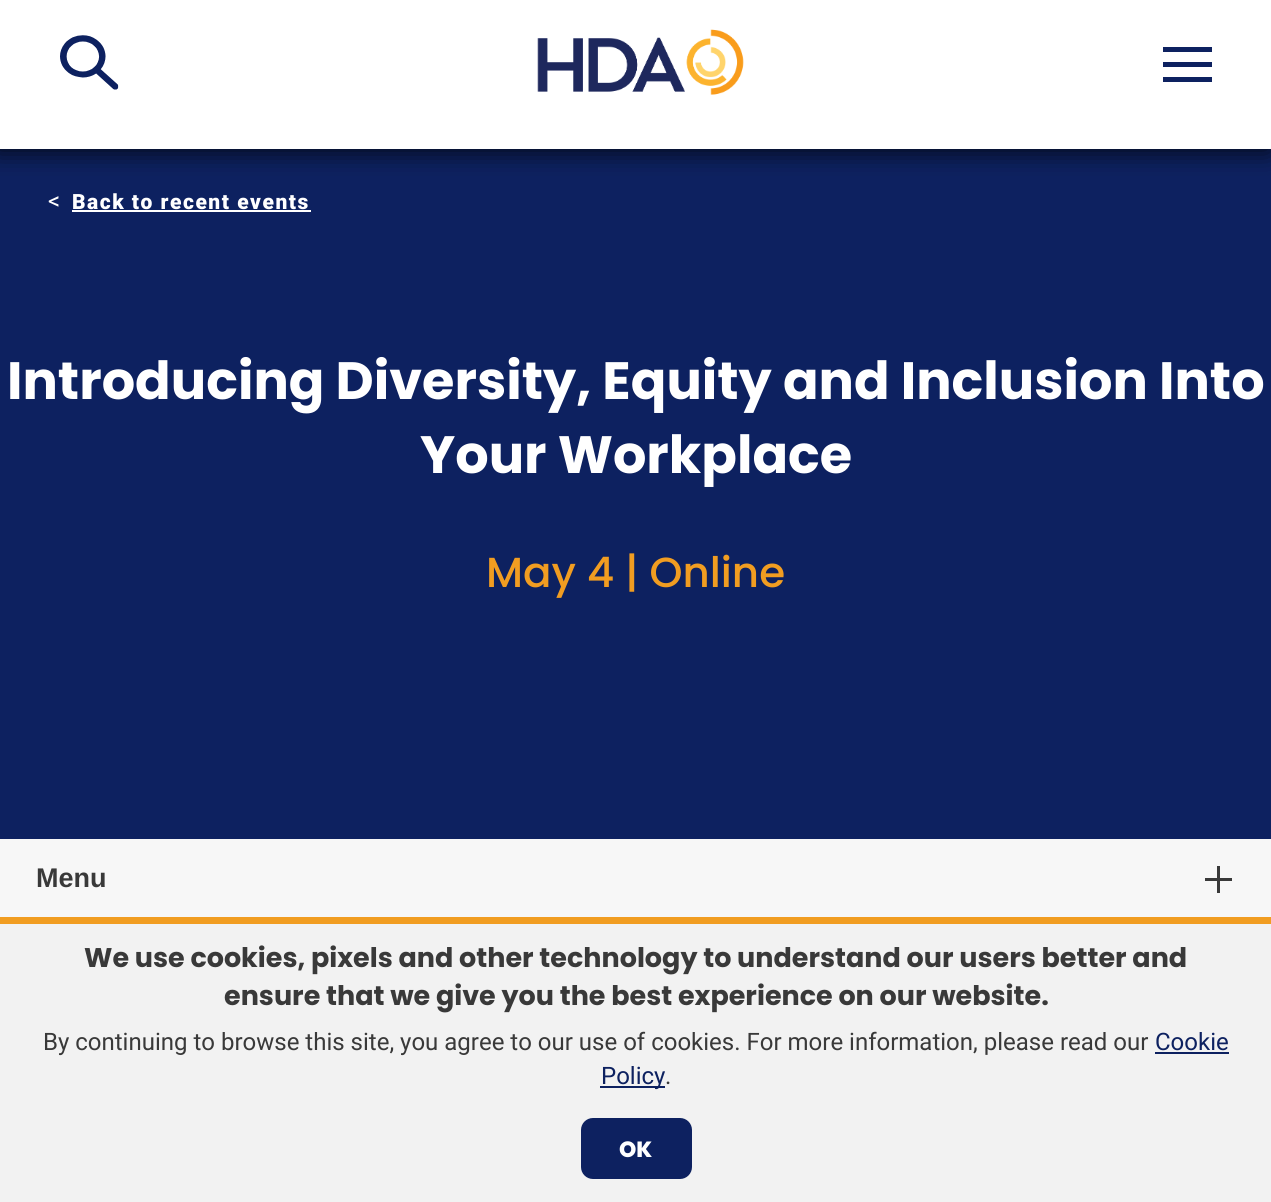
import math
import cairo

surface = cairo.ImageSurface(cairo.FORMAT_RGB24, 1271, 1202)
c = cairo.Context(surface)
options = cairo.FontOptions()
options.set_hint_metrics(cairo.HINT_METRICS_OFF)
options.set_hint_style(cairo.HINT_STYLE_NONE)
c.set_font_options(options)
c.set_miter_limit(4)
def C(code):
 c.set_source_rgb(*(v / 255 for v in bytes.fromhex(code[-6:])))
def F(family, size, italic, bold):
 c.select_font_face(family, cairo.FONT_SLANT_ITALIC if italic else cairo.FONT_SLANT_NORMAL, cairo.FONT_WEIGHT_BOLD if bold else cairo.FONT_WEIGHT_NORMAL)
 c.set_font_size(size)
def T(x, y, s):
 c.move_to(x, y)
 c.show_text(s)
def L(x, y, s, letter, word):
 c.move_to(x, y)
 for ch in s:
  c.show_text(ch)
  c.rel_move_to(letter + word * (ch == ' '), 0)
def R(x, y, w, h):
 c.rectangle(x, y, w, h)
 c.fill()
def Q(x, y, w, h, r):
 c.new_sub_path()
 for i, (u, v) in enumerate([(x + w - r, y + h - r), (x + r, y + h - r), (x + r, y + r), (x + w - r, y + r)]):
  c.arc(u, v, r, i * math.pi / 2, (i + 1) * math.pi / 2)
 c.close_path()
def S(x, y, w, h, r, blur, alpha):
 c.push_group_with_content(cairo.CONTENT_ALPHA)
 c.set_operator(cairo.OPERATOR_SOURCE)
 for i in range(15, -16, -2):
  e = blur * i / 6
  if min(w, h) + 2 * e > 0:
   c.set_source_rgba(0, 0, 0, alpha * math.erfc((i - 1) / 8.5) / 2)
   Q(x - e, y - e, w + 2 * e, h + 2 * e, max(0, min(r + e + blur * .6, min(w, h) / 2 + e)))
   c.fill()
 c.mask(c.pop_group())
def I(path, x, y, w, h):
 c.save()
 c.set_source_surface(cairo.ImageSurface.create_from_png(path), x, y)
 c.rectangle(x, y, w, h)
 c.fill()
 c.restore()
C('0d2160')
c.paint()
C('000000')
S(-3,2,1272,148,0,12,.5)
S(-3,2,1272,148,0,12,.5)
C('ffffff')
R(0,0,1271,149)
I('1.png',60,35,59,55)
I('2.png',537,29,207,66)
C('0d2160')
R(1163,62,49,5)
R(1163,47,49,5)
R(1163,77,49,5)
F('Roboto',24,0,0)
C('ffffff')
T(48,209,'<')
F('Roboto Black',21,0,0)
L(72,209,'Back to recent events',1.5,0)
R(72,210,239,2)
F('Poppins',52.5,0,1)
T(7,399,'Introducing Diversity, Equity and Inclusion Into')
T(420,473,'Your Workplace')
F('Poppins Medium',42,0,0)
C('f19d21')
T(486,587,'May 4 | Online')
C('f7f7f7')
R(0,839,1271,78)
F('Liberation Sans',27,0,1)
C('393939')
T(36,887,'Menu')
R(1205,878,27,3)
R(1217,866,3,27)
C('f2f2f2')
R(0,924,1271,278)
C('f19d21')
R(0,917,1271,7)
F('Poppins',27,0,1)
C('393939')
T(84,967,'We use cookies, pixels and other technology to understand our users better and')
T(224,1005,'ensure that we give you the best experience on our website.')
F('Roboto',24,0,0)
T(43,1050,'By continuing to browse this site, you agree to our use of cookies. For more information, please read our')
C('0d2160')
T(1155,1050,'Cookie')
R(1155,1052,74,2)
R(600,1086,65,2)
T(601,1084,'Policy')
C('393939')
T(665,1084,'.')
C('0d2160')
Q(582.5,1119.5,108,58,10.5)
c.fill_preserve()
c.set_line_width(3)
c.stroke()
F('Poppins ExtraBold',22,0,0)
C('ffffff')
T(619,1157,'OK')
surface.write_to_png('o.png')
